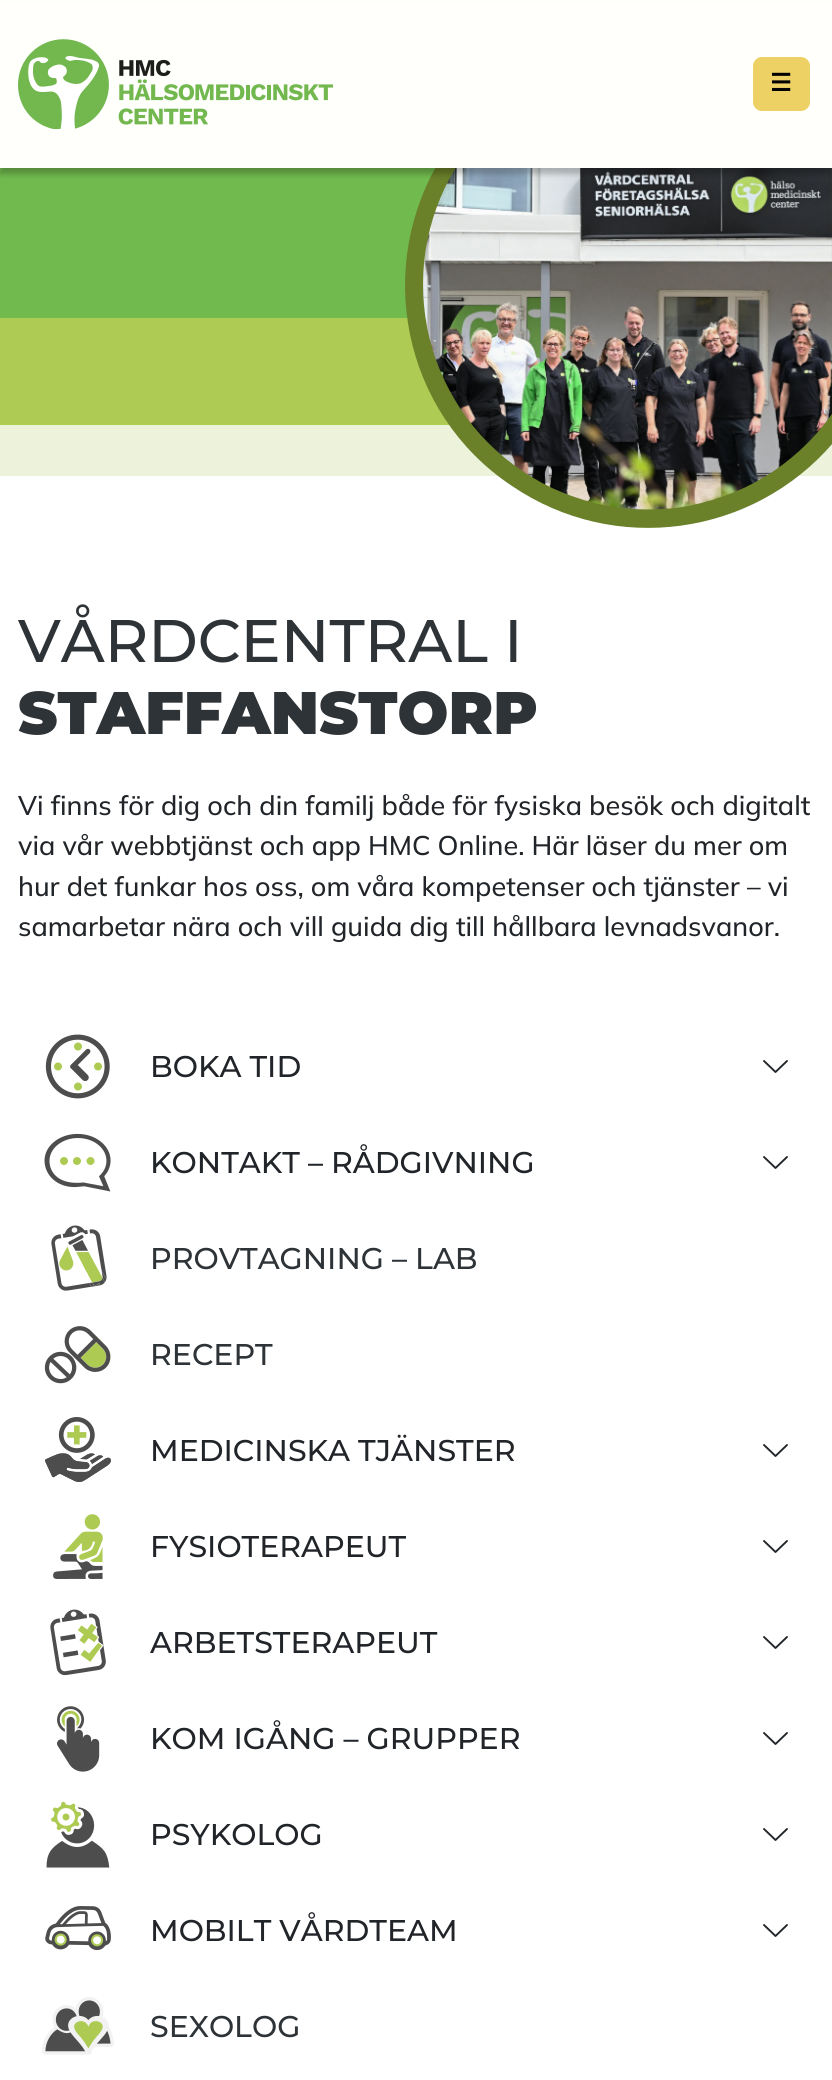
import math
import cairo

surface = cairo.ImageSurface(cairo.FORMAT_RGB24, 832, 2080)
c = cairo.Context(surface)
options = cairo.FontOptions()
options.set_hint_metrics(cairo.HINT_METRICS_OFF)
options.set_hint_style(cairo.HINT_STYLE_NONE)
c.set_font_options(options)
c.set_miter_limit(4)
def C(code):
 c.set_source_rgb(*(v / 255 for v in bytes.fromhex(code[-6:])))
def F(family, size, italic, bold):
 c.select_font_face(family, cairo.FONT_SLANT_ITALIC if italic else cairo.FONT_SLANT_NORMAL, cairo.FONT_WEIGHT_BOLD if bold else cairo.FONT_WEIGHT_NORMAL)
 c.set_font_size(size)
def T(x, y, s):
 c.move_to(x, y)
 c.show_text(s)
def R(x, y, w, h):
 c.rectangle(x, y, w, h)
 c.fill()
def Q(x, y, w, h, r):
 c.new_sub_path()
 for i, (u, v) in enumerate([(x + w - r, y + h - r), (x + r, y + h - r), (x + r, y + r), (x + w - r, y + r)]):
  c.arc(u, v, r, i * math.pi / 2, (i + 1) * math.pi / 2)
 c.close_path()
def S(x, y, w, h, r, blur, alpha):
 c.push_group_with_content(cairo.CONTENT_ALPHA)
 c.set_operator(cairo.OPERATOR_SOURCE)
 for i in range(15, -16, -2):
  e = blur * i / 6
  if min(w, h) + 2 * e > 0:
   c.set_source_rgba(0, 0, 0, alpha * math.erfc((i - 1) / 8.5) / 2)
   Q(x - e, y - e, w + 2 * e, h + 2 * e, max(0, min(r + e + blur * .6, min(w, h) / 2 + e)))
   c.fill()
 c.mask(c.pop_group())
def I(path, x, y, w, h):
 c.save()
 c.set_source_surface(cairo.ImageSurface.create_from_png(path), x, y)
 c.rectangle(x, y, w, h)
 c.fill()
 c.restore()
C('ffffff')
c.paint()
C('71bb4e')
R(0,168,436,150)
C('aecc53')
R(0,318,450,107)
C('ecf3da')
R(0,425,832,51)
C('6a8029')
c.new_path()
c.move_to(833,443)
c.curve_to(753,536,615,556,512,486)
c.curve_to(402,413,373,265,443,155)
c.line_to(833,155)
c.close_path()
c.fill()
I('2.png',423,168,409,342)
C('000000')
S(0,6,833,168,0,3,.25)
C('fffffc')
R(0,1,832,167)
I('1.png',18,39,315,90)
C('edd164')
Q(753,57,57,54,9)
c.fill()
F('DejaVu Sans',24,0,1)
C('000000')
T(770,91,'☰')
F('Montserrat Medium',60,0,0)
C('2e3337')
T(18,662,'VÅRDCENTRAL I')
F('Montserrat Black',60,0,0)
T(18,734,'STAFFANSTORP')
F('Mulish Medium',27,0,0)
C('212529')
T(18,815,'Vi finns för dig och din familj både för fysiska besök och digitalt')
T(18,855,'via vår webbtjänst och app HMC Online. Här läser du mer om')
T(18,896,'hur det funkar hos oss, om våra kompetenser och tjänster – vi')
T(18,936,'samarbetar nära och vill guida dig till hållbara levnadsvanor.')
I('3.png',45,1034,65,65)
F('Montserrat Medium',30,0,0)
T(150,1077,'BOKA TID')
c.new_path()
c.move_to(764,1061)
c.line_to(775.5,1072)
c.line_to(787,1061)
c.set_line_width(1.9)
c.set_line_cap(cairo.LINE_CAP_ROUND)
c.set_line_join(cairo.LINE_JOIN_ROUND)
c.stroke()
I('4.png',44,1133,67,59)
T(150,1173,'KONTAKT – RÅDGIVNING')
c.new_path()
c.move_to(764,1157)
c.line_to(775.5,1168)
c.line_to(787,1157)
c.stroke()
I('5.png',51,1225,56,66)
C('2e3337')
T(150,1269,'PROVTAGNING – LAB')
I('6.png',44,1326,67,58)
T(150,1365,'RECEPT')
I('7.png',45,1417,66,65)
C('212529')
T(150,1461,'MEDICINSKA TJÄNSTER')
c.new_path()
c.move_to(764,1445)
c.line_to(775.5,1456)
c.line_to(787,1445)
c.stroke()
I('8.png',53,1514,50,65)
T(150,1557,'FYSIOTERAPEUT')
c.new_path()
c.move_to(764,1541)
c.line_to(775.5,1552)
c.line_to(787,1541)
c.stroke()
I('9.png',50,1609,56,67)
T(150,1653,'ARBETSTERAPEUT')
c.new_path()
c.move_to(764,1637)
c.line_to(775.5,1648)
c.line_to(787,1637)
c.stroke()
I('10.png',57,1706,43,66)
T(150,1749,'KOM IGÅNG – GRUPPER')
c.new_path()
c.move_to(764,1733)
c.line_to(775.5,1744)
c.line_to(787,1733)
c.stroke()
I('11.png',46,1801,64,67)
T(150,1845,'PSYKOLOG')
c.new_path()
c.move_to(764,1829)
c.line_to(775.5,1840)
c.line_to(787,1829)
c.stroke()
I('12.png',45,1906,66,45)
T(150,1941,'MOBILT VÅRDTEAM')
c.new_path()
c.move_to(764,1925)
c.line_to(775.5,1936)
c.line_to(787,1925)
c.stroke()
I('13.png',42,1997,72,58)
C('2e3337')
T(150,2037,'SEXOLOG')
surface.write_to_png('o.png')
